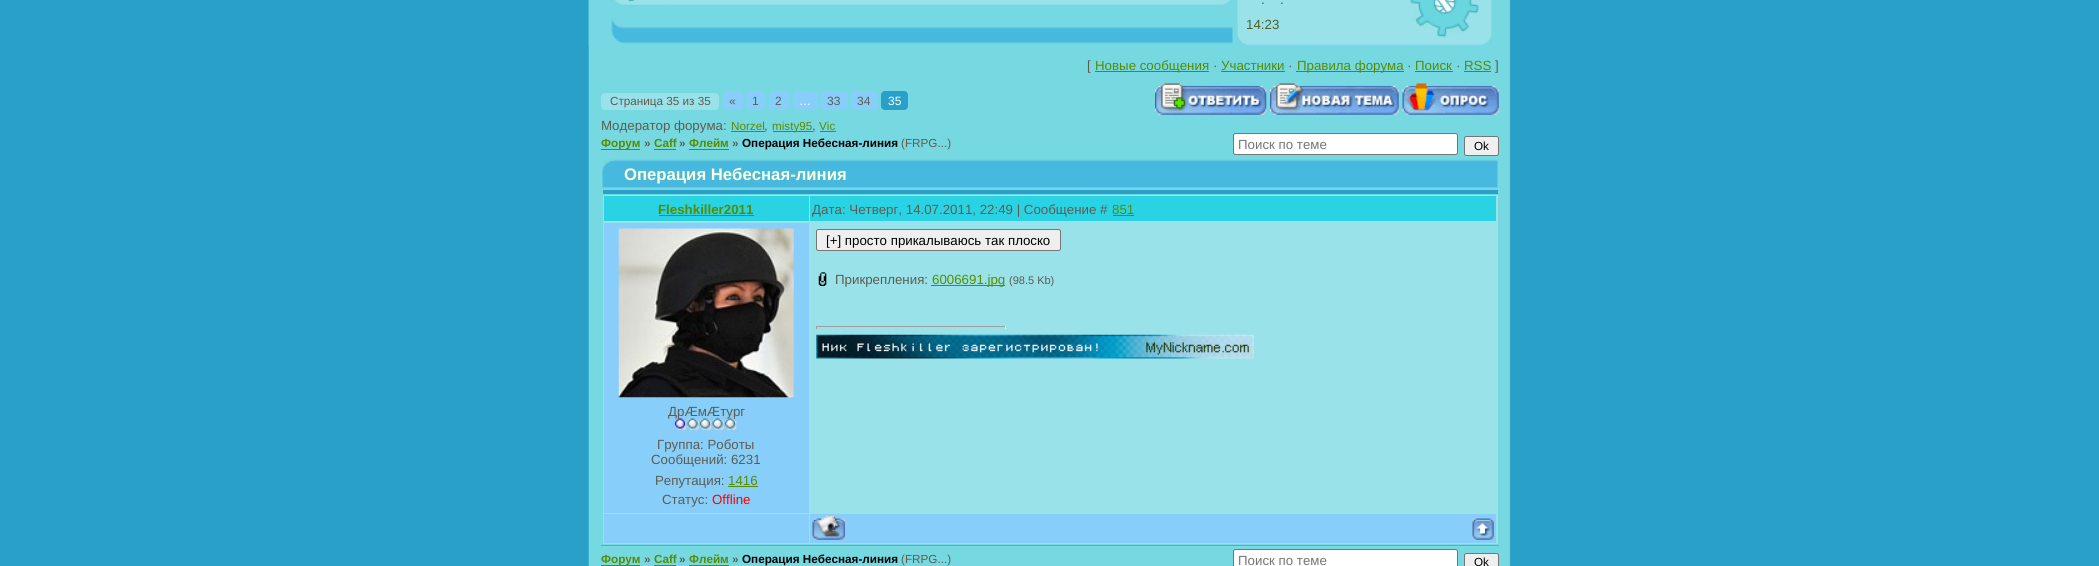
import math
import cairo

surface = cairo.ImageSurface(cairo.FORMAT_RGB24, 2099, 566)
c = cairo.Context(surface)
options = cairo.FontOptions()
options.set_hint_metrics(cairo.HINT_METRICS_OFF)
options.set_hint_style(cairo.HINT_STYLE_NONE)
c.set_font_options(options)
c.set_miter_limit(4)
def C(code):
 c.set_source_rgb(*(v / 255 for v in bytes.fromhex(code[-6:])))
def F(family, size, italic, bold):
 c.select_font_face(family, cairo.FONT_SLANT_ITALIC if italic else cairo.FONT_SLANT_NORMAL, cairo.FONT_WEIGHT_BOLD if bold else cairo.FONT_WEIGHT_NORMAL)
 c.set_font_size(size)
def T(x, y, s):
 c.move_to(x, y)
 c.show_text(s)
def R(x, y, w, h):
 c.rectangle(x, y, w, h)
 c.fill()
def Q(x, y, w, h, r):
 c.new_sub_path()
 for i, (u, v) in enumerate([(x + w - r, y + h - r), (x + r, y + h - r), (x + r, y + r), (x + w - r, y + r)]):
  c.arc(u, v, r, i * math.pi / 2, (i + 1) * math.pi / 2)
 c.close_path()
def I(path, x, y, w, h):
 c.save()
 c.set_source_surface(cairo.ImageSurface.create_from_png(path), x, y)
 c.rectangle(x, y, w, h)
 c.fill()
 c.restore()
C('29a0c7')
c.paint()
I('1.png',588,0,923,46)
I('2.png',588,0,645,46)
I('3.png',1237,0,255,45)
F('Liberation Sans',13.3,0,0)
C('4c5f2c')
T(1261,4,'.')
T(1280,4,'.')
T(1246,29,'14:23')
I('4.png',588,46,923,520)
C('5e5c4e')
T(1087,70,'[')
C('578c00')
R(1095,71,114,1)
T(1095,70,'Новые сообщения')
C('5e5c4e')
T(1213,70,'·')
C('578c00')
T(1221,70,'Участники')
R(1221,71,64,1)
C('5e5c4e')
T(1288,70,'·')
C('578c00')
R(1296,71,108,1)
T(1297,70,'Правила форума')
C('5e5c4e')
T(1407,70,'·')
C('578c00')
T(1415,70,'Поиск')
R(1415,71,38,1)
C('5e5c4e')
T(1456,70,'·')
C('578c00')
T(1464,70,'RSS')
R(1464,71,27,1)
C('5e5c4e')
T(1495,70,']')
C('99e2e9')
Q(601,93,118,17,4)
c.fill()
F('Liberation Sans',11.7,0,0)
C('5e5c4e')
T(610,105,'Страница 35 из 35')
C('87cefa')
Q(723,91,20,19,4)
c.fill()
F('Liberation Sans',12,0,0)
C('5e5c4e')
T(729,105,'«')
C('87cefa')
Q(746,91,19,19,4)
c.fill()
C('5e5c4e')
T(752,105,'1')
C('87cefa')
Q(769,91,20,19,4)
c.fill()
C('5e5c4e')
T(775,105,'2')
C('87cefa')
Q(793,91,25,19,4)
c.fill()
C('ffffff')
T(799,105,'…')
C('87cefa')
Q(821,91,27,19,4)
c.fill()
C('5e5c4e')
T(827,105,'33')
C('87cefa')
Q(851,91,27,19,4)
c.fill()
C('5e5c4e')
T(857,105,'34')
C('29a0c7')
Q(881,91,27,19,4)
c.fill()
C('ffffff')
T(888,105,'35')
I('5.png',1155,83,112,32)
I('6.png',1270,83,129,32)
I('7.png',1402,83,97,32)
F('Liberation Sans',13.3,0,0)
C('5e5c4e')
T(601,130,'Модератор форума:')
F('Liberation Sans',11.7,0,0)
C('578c00')
T(731,130,'Norzel')
F('Liberation Sans',13.3,0,0)
C('5e5c4e')
T(764,130,',')
C('578c00')
R(731,131,34,1)
R(773,131,40,1)
F('Liberation Sans',11.7,0,0)
T(772,130,'misty95')
F('Liberation Sans',13.3,0,0)
C('5e5c4e')
T(812,130,',')
C('578c00')
R(820,131,16,1)
F('Liberation Sans',11.7,0,0)
T(819,130,'Vic')
R(601,149,39,1)
F('Liberation Sans',11.7,0,1)
T(601,147,'Форум')
C('5e5c4e')
T(644,147,'»')
C('578c00')
T(654,147,'Caff')
R(654,149,22,1)
C('5e5c4e')
T(679,147,'»')
C('578c00')
T(689,147,'Флейм')
R(689,149,40,1)
C('5e5c4e')
T(732,147,'»')
C('000000')
T(742,147,'Операция Небесная-линия')
F('Liberation Sans',11.7,0,0)
C('5e5c4e')
T(901,147,'(FRPG...)')
C('ffffff')
Q(1233.5,133.5,224,21,2)
c.fill_preserve()
C('767676')
c.set_line_width(1)
c.stroke()
F('Liberation Sans',13.3,0,0)
C('757575')
T(1238,149,'Поиск по теме')
C('efefef')
Q(1464.5,136.5,34,19,2)
c.fill_preserve()
C('767676')
c.stroke()
F('Liberation Sans',11.7,0,0)
C('000000')
T(1474,150,'Ok')
C('989985')
R(601,545,898,1)
I('8.png',602,159,896,30)
F('Liberation Sans',16.7,0,1)
C('fdffdd')
T(624,180,'Операция Небесная-линия')
C('29a0c7')
R(603,190,895,4)
C('99e2e9')
R(603,195,895,349)
C('29d3e3')
R(604,196,205,25)
F('Liberation Sans',13.3,0,1)
C('578c00')
T(658,214,'Fleshkiller2011')
R(659,215,95,1)
C('29d3e3')
R(810,196,686,25)
F('Liberation Sans',13.3,0,0)
C('5e5c4e')
T(812,214,'Дата: Четверг, 14.07.2011, 22:49 | Сообщение #')
C('578c00')
T(1112,214,'851')
R(1113,215,21,1)
C('efefef')
Q(816.5,229.5,244,21,2)
c.fill_preserve()
C('767676')
c.stroke()
C('000000')
T(826,245,'[+] просто прикалываюсь так плоско')
I('9.png',818,272,9,14)
C('5e5c4e')
T(835,284,'Прикрепления:')
C('578c00')
R(931,285,74,1)
T(932,284,'6006691.jpg')
F('Liberation Sans',11,0,0)
C('5e5c4e')
T(1009,284,'(98.5 Kb)')
C('9f9f9f')
R(816,326,190,1)
C('eeeeee')
R(1005,326,1,3)
C('9f9f9f')
R(816,326,1,3)
I('10.png',816,334,438,25)
C('87cefa')
R(604,223,205,290)
I('11.png',618,228,176,170)
F('Liberation Sans',13.3,0,0)
C('5e5c4e')
T(668,416,'ДрÆмÆтург')
I('12.png',674,418,63,12)
T(657,449,'Группа: Роботы')
T(651,464,'Сообщений: 6231')
T(655,485,'Репутация:')
C('578c00')
T(728,485,'1416')
R(728,486,30,1)
C('5e5c4e')
T(662,504,'Статус:')
C('ff0000')
T(712,504,'Offline')
C('87cefa')
R(604,514,205,29)
R(810,514,686,29)
I('13.png',812,516,33,24)
I('14.png',1472,518,22,22)
C('578c00')
R(601,565,39,1)
F('Liberation Sans',11.7,0,1)
T(601,563,'Форум')
C('5e5c4e')
T(644,563,'»')
C('578c00')
T(654,563,'Caff')
R(654,565,22,1)
C('5e5c4e')
T(679,563,'»')
C('578c00')
T(689,563,'Флейм')
R(689,565,40,1)
C('5e5c4e')
T(732,563,'»')
C('000000')
T(742,563,'Операция Небесная-линия')
F('Liberation Sans',11.7,0,0)
C('5e5c4e')
T(901,563,'(FRPG...)')
C('ffffff')
Q(1233.5,549.5,224,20,2)
c.fill_preserve()
C('767676')
c.stroke()
F('Liberation Sans',13.3,0,0)
C('757575')
T(1238,565,'Поиск по теме')
C('efefef')
Q(1464.5,553.5,34,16,2)
c.fill_preserve()
C('767676')
c.stroke()
F('Liberation Sans',11.7,0,0)
C('000000')
T(1474,566,'Ok')
surface.write_to_png('o.png')
